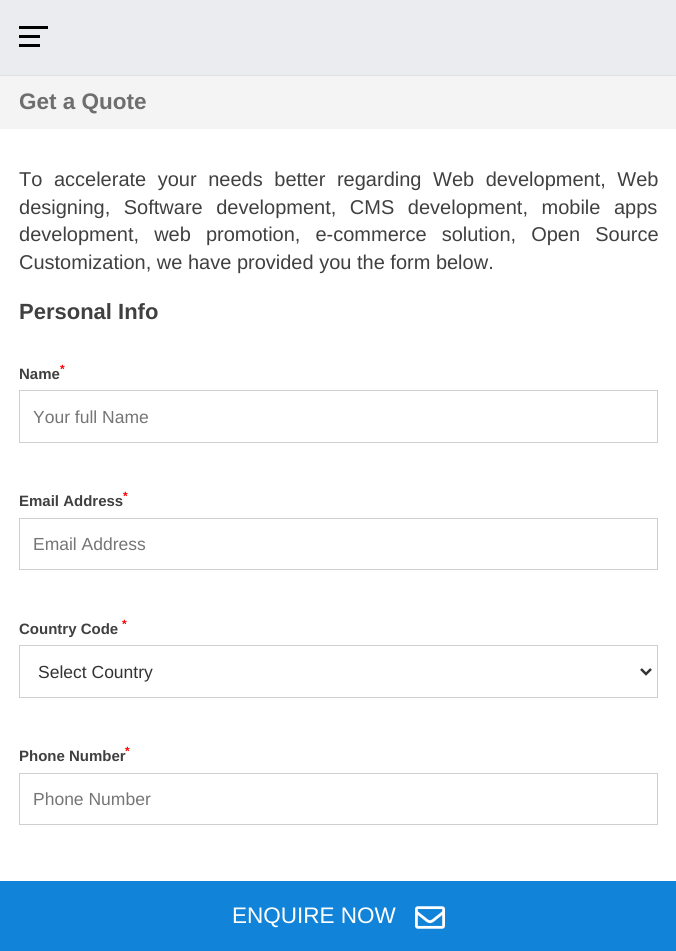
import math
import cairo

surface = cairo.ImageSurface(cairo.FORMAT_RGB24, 676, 951)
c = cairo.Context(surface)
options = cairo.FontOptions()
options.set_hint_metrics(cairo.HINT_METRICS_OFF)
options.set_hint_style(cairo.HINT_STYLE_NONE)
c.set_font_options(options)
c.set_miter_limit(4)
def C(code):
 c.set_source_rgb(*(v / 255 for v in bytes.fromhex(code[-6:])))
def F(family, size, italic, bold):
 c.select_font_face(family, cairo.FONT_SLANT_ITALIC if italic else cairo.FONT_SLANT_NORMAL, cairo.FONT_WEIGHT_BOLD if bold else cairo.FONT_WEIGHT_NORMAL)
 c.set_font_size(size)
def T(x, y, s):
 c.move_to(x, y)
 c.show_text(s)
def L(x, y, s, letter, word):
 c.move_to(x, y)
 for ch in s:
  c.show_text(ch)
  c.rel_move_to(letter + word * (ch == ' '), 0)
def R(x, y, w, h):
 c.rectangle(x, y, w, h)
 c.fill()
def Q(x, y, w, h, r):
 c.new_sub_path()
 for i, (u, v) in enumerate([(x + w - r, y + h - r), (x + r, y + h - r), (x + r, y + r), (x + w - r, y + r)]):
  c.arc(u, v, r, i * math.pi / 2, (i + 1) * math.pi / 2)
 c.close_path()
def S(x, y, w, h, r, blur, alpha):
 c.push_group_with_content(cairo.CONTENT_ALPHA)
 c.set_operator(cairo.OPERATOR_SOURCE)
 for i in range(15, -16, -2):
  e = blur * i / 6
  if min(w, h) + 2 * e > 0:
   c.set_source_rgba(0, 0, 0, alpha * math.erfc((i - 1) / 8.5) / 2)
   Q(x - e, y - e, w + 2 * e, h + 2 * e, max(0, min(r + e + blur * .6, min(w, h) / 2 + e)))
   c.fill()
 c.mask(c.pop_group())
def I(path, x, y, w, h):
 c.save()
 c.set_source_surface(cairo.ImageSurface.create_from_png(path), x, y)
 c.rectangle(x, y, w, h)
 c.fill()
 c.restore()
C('ffffff')
c.paint()
C('f4f4f4')
R(0,75,676,54)
C('000000')
S(0,0,676,75,0,.5,.3)
C('eaecf0')
R(0,0,676,75)
C('000000')
R(19,35,21,3)
R(19,26,29,3)
R(19,44,21,3)
F('Liberation Sans',22.5,0,1)
C('6e6e6e')
T(19,109,'Get a Quote')
F('Liberation Sans',20,0,0)
C('404040')
L(19,186,'To accelerate your needs better regarding Web development, Web',0,6)
L(19,214,'designing, Software development, CMS development, mobile apps',0,8)
L(19,241,'development, web promotion, e-commerce solution, Open Source',0,9.5)
T(19,269,'Customization, we have provided you the form below.')
F('Liberation Sans',22,0,1)
T(19,319,'Personal Info')
F('Liberation Sans',12,0,1)
C('ff0000')
T(60,373,'*')
F('Liberation Sans',15,0,1)
C('404040')
T(19,379,'Name')
c.rectangle(19.5,390.5,638,52)
C('cfcfcf')
c.set_line_width(1)
c.stroke()
F('Liberation Sans',17.5,0,0)
C('757575')
T(33,423,'Your full Name')
F('Liberation Sans',12,0,1)
C('ff0000')
T(123,500,'*')
F('Liberation Sans',15,0,1)
C('404040')
T(19,506,'Email Address')
c.rectangle(19.5,518.5,638,51)
C('cfcfcf')
c.stroke()
F('Liberation Sans',17.5,0,0)
C('757575')
T(33,550,'Email Address')
F('Liberation Sans',12,0,1)
C('ff0000')
T(122,628,'*')
F('Liberation Sans',15,0,1)
C('404040')
T(19,634,'Country Code')
c.rectangle(19.5,645.5,638,52)
C('cfcfcf')
c.stroke()
c.new_path()
c.move_to(641,669)
c.line_to(646,674)
c.line_to(651,669)
C('333333')
c.set_line_width(2.5)
c.stroke()
F('Liberation Sans',17.5,0,0)
T(38,678,'Select Country')
F('Liberation Sans',12,0,1)
C('ff0000')
T(125,755,'*')
F('Liberation Sans',15,0,1)
C('404040')
T(19,761,'Phone Number')
c.rectangle(19.5,773.5,638,51)
C('cfcfcf')
c.set_line_width(1)
c.stroke()
F('Liberation Sans',17.5,0,0)
C('757575')
T(33,805,'Phone Number')
C('1183d8')
R(0,881,676,70)
F('Liberation Sans',22.5,0,0)
C('ffffff')
T(232,923,'ENQUIRE NOW')
I('1.png',415,906,30,23)
surface.write_to_png('o.png')
